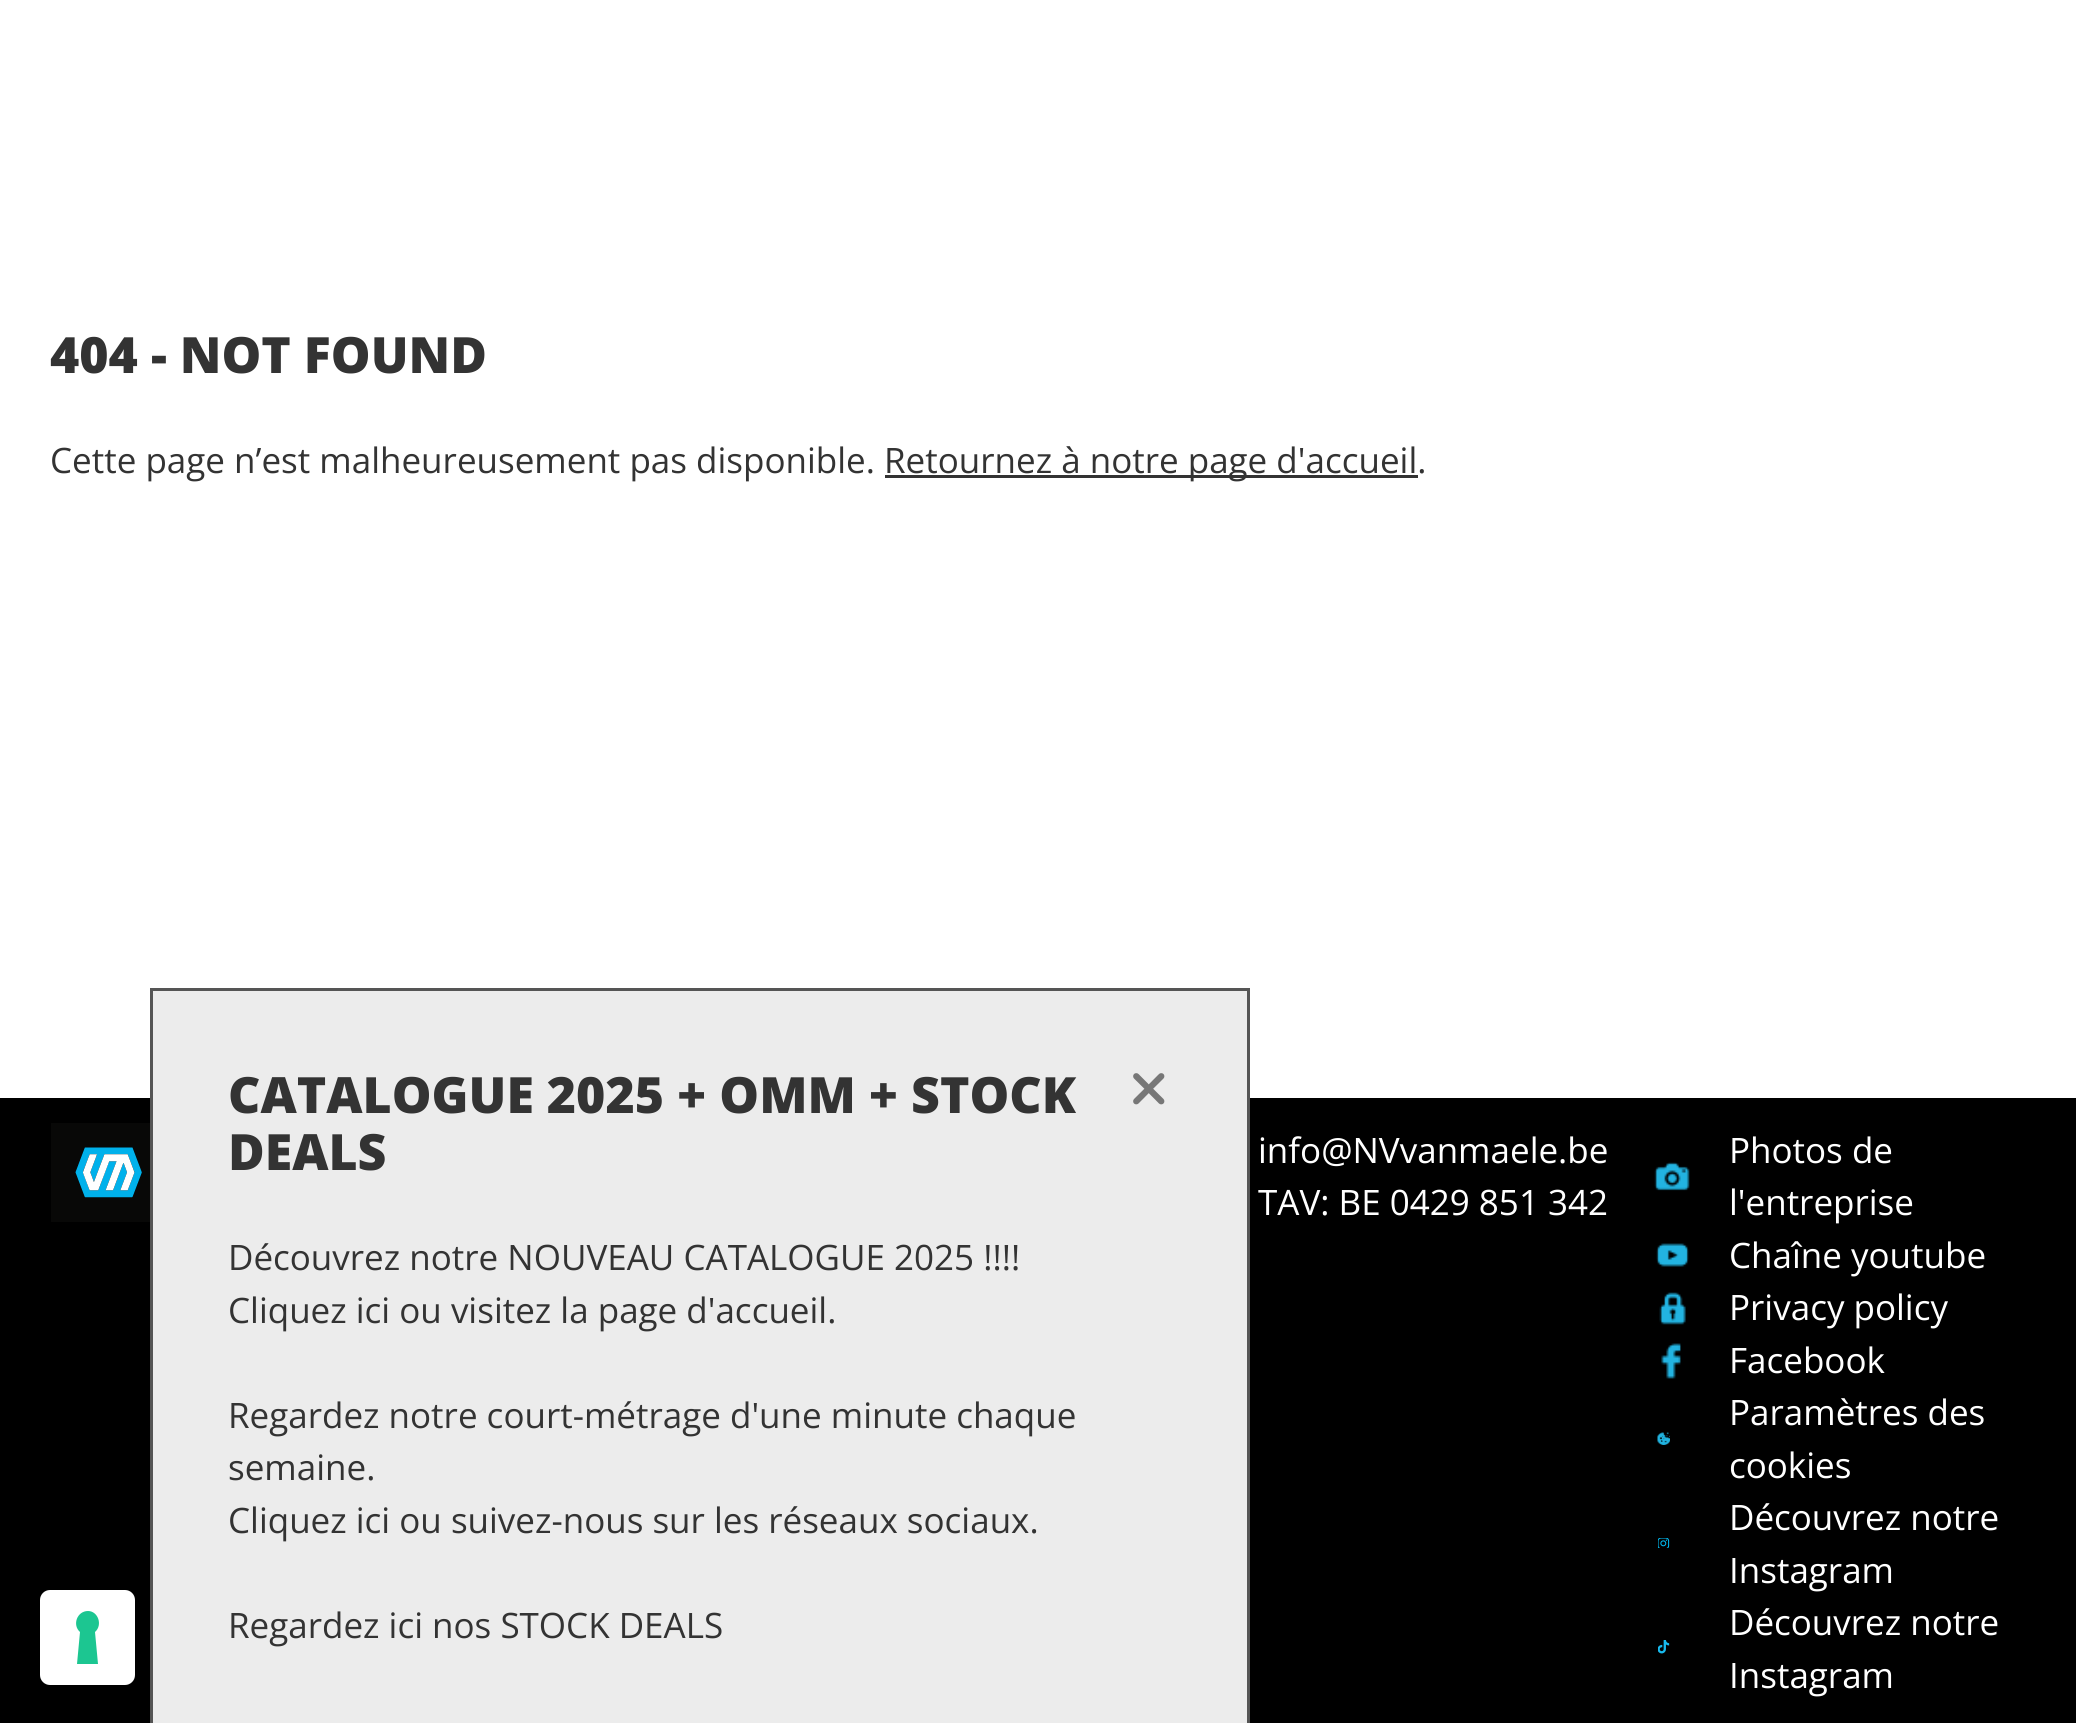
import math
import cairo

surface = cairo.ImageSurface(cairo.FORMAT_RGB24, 2076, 1723)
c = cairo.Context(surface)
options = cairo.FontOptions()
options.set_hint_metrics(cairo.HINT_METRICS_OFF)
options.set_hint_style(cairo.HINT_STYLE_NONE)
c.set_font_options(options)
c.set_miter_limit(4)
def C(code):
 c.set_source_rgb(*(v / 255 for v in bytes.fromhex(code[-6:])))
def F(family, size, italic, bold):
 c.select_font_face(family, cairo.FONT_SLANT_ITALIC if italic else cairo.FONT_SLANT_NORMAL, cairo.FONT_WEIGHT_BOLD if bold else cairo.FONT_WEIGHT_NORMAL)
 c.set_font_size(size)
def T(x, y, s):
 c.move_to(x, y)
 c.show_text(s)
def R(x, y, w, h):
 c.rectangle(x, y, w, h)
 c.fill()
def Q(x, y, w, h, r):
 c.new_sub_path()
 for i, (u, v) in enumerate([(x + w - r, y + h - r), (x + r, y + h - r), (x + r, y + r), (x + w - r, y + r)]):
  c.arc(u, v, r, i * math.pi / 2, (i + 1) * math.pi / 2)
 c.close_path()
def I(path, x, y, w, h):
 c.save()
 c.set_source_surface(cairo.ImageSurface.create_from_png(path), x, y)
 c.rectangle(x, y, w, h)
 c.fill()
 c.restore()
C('ffffff')
c.paint()
F('Open Sans ExtraBold',50,0,0)
C('333333')
T(50,373,'404 - NOT FOUND')
F('Open Sans',35,0,0)
T(50,473,'Cette page n’est malheureusement pas disponible.')
R(885,475,533,3)
T(884,473,'Retournez à notre page d\'accueil.')
C('000000')
R(0,1098,2076,625)
C('ececec')
c.rectangle(151.5,989.5,1097,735)
c.fill_preserve()
C('555555')
c.set_line_width(3)
c.stroke()
F('Open Sans ExtraBold',50,0,0)
C('333333')
T(228,1113,'CATALOGUE 2025 + OMM + STOCK')
T(228,1170,'DEALS')
I('1.png',1133,1073,32,32)
F('Open Sans',35,0,0)
T(228,1270,'Découvrez notre NOUVEAU CATALOGUE 2025 !!!!')
T(228,1323,'Cliquez ici ou visitez la page d\'accueil.')
T(228,1428,'Regardez notre court-métrage d\'une minute chaque')
T(228,1480,'semaine.')
T(228,1533,'Cliquez ici ou suivez-nous sur les réseaux sociaux.')
T(228,1638,'Regardez ici nos STOCK DEALS')
I('2.png',51,1123,99,99)
C('ffffff')
T(1258,1163,'info@NVvanmaele.be')
T(1258,1215,'TAV: BE 0429 851 342')
I('3.png',1654,1162,36,29)
T(1729,1163,'Photos de')
T(1729,1215,'l\'entreprise')
I('4.png',1656,1243,33,24)
T(1729,1268,'Chaîne youtube')
I('5.png',1659,1292,27,33)
T(1729,1320,'Privacy policy')
I('6.png',1661,1343,20,36)
T(1729,1373,'Facebook')
I('7.png',1657,1432,13,13)
T(1729,1425,'Paramètres des')
T(1729,1478,'cookies')
I('8.png',1658,1538,12,10)
T(1729,1530,'Découvrez notre')
T(1729,1583,'Instagram')
I('9.png',1658,1640,12,14)
T(1729,1635,'Découvrez notre')
T(1729,1688,'Instagram')
Q(40,1590,95,95,10)
c.fill()
C('1cc691')
c.set_fill_rule(cairo.FILL_RULE_EVEN_ODD)
c.new_path()
c.move_to(88,1611)
c.curve_to(98,1611,103,1625,95,1632)
c.line_to(98,1664)
c.line_to(77,1664)
c.line_to(80,1632)
c.curve_to(72,1625,77,1611,88,1611)
c.close_path()
c.fill()
surface.write_to_png('o.png')
